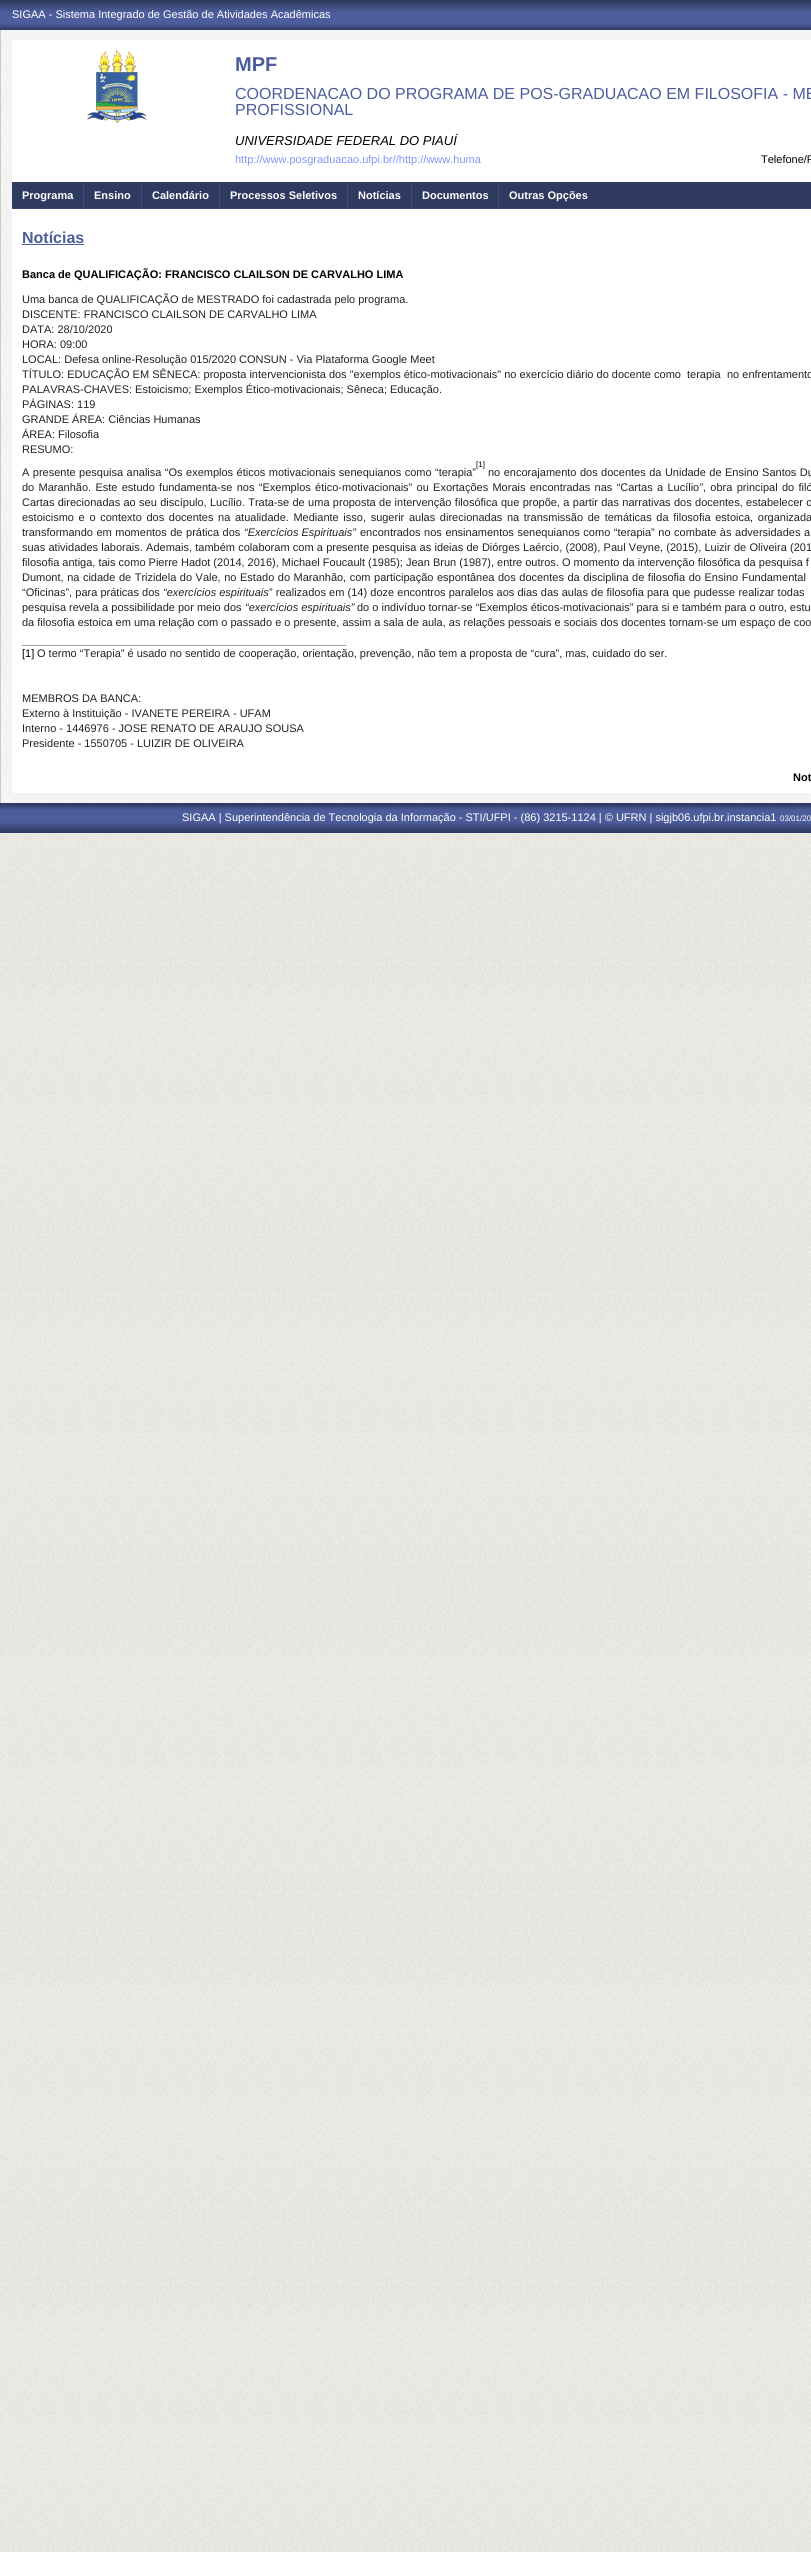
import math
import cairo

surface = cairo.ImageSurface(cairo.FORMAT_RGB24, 811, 2552)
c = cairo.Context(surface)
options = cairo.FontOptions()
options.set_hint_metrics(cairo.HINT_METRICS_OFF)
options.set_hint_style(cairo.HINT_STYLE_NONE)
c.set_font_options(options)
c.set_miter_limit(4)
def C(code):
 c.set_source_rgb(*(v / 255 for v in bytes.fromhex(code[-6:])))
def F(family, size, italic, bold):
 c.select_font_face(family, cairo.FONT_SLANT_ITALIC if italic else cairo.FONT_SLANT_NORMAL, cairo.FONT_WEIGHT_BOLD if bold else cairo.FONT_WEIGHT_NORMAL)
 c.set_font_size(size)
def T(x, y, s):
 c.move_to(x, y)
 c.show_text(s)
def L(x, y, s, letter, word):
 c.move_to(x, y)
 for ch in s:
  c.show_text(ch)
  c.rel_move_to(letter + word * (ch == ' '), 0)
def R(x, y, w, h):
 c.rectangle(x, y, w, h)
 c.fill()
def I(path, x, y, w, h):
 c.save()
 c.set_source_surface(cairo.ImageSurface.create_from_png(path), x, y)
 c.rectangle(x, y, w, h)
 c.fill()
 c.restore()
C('ffffff')
c.paint()
I('1.png',0,833,811,1719)
I('2.png',0,0,811,30)
I('3.png',0,803,811,30)
F('Liberation Sans',11,0,0)
C('ffffff')
T(12,18,'SIGAA - Sistema Integrado de Gestão de Atividades Acadêmicas')
I('4.png',1,30,810,773)
C('cacac7')
R(0,30,1,773)
C('ffffff')
R(12,40,799,753)
I('5.png',87,50,60,73)
F('Liberation Sans',20,0,1)
C('4d5d9c')
T(235,71,'MPF')
F('Liberation Sans',16,0,0)
T(235,99,'COORDENACAO DO PROGRAMA DE POS-GRADUACAO EM FILOSOFIA - ME')
T(235,115,'PROFISSIONAL')
F('Liberation Sans',13,1,0)
C('000000')
T(235,145,'UNIVERSIDADE FEDERAL DO PIAUÍ')
F('Liberation Sans',11,0,0)
C('7d97fe')
T(235,163,'http://www.posgraduacao.ufpi.br//http://www.huma')
C('000000')
T(761,163,'Telefone/R')
C('2f3a60')
R(12,182,799,26)
C('3b4878')
R(12,208,799,1)
F('Liberation Sans',11,0,1)
C('ffffff')
T(22,199,'Programa')
C('3b4878')
R(83,182,1,27)
C('ffffff')
T(94,199,'Ensino')
C('3b4878')
R(141,182,1,27)
C('ffffff')
T(152,199,'Calendário')
C('3b4878')
R(219,182,1,27)
C('ffffff')
T(230,199,'Processos Seletivos')
C('3b4878')
R(347,182,1,27)
C('ffffff')
T(358,199,'Notícias')
C('3b4878')
R(411,182,1,27)
C('ffffff')
T(422,199,'Documentos')
C('3b4878')
R(498,182,1,27)
C('ffffff')
T(509,199,'Outras Opções')
F('Liberation Sans',16,0,1)
C('4d5d9c')
T(22,243,'Notícias')
R(22,244,62,1)
F('Liberation Sans',11,0,1)
C('000000')
T(22,278,'Banca de QUALIFICAÇÃO: FRANCISCO CLAILSON DE CARVALHO LIMA')
F('Liberation Sans',11,0,0)
C('222222')
T(22,303,'Uma banca de QUALIFICAÇÃO de MESTRADO foi cadastrada pelo programa.')
T(22,318,'DISCENTE: FRANCISCO CLAILSON DE CARVALHO LIMA')
T(22,333,'DATA: 28/10/2020')
T(22,348,'HORA: 09:00')
T(22,363,'LOCAL: Defesa online-Resolução 015/2020 CONSUN - Via Plataforma Google Meet')
T(22,378,'TÍTULO: EDUCAÇÃO EM SÊNECA: proposta intervencionista dos "exemplos ético-motivacionais" no exercício diário do docente como')
T(687,378,'terapia')
T(727,378,'no enfrentamento')
T(22,393,'PALAVRAS-CHAVES: Estoicismo; Exemplos Ético-motivacionais; Sêneca; Educação.')
T(22,408,'PÁGINAS: 119')
T(22,423,'GRANDE ÁREA: Ciências Humanas')
T(22,438,'ÁREA: Filosofia')
T(22,453,'RESUMO:')
F('Liberation Sans',8,0,0)
C('000000')
T(476,467,'[1]')
F('Liberation Sans',11,0,0)
C('222222')
L(22,476,'A presente pesquisa analisa “Os exemplos éticos motivacionais senequianos como “terapia”',0,.4)
L(488,476,'no encorajamento dos docentes da Unidade de Ensino Santos Du',0,.4)
L(22,491,'do Maranhão. Este estudo fundamenta-se nos “Exemplos ético-motivacionais” ou Exortações Morais encontradas nas “Cartas a Lucílio',0,1.25)
F('Liberation Sans',11,1,0)
T(699,491,'”')
F('Liberation Sans',11,0,0)
L(703,491,', obra principal do filó',0,1.25)
L(22,506,'Cartas direcionadas ao seu discípulo, Lucílio. Trata-se de uma proposta de intervenção filosófica que propõe, a partir das narrativas dos docentes, estabelecer o',0,.3)
L(22,521,'estoicismo e o contexto dos docentes na atualidade. Mediante isso, sugerir aulas direcionadas na transmissão de temáticas da filosofia estoica, organizada',0,1.6)
L(22,536,'transformando em momentos de prática dos',0,.5)
F('Liberation Sans',11,1,0)
T(244,536,'“Exercícios Espirituais”')
F('Liberation Sans',11,0,0)
L(360,536,'encontrados nos ensinamentos senequianos como “terapia” no combate às adversidades a',0,.5)
L(22,551,'suas atividades laborais. Ademais, também colaboram com a presente pesquisa as ideias de Diórges Laércio, (2008), Paul Veyne, (2015), Luizir de Oliveira (201',0,.2)
T(22,566,'filosofia antiga, tais como Pierre Hadot (2014, 2016), Michael Foucault (1985); Jean Brun (1987), entre outros. O momento da intervenção filosófica da pesquisa f')
L(22,581,'Dumont, na cidade de Trizidela do Vale, no Estado do Maranhão, com participação espontânea dos docentes da disciplina de filosofia do Ensino Fundamental',0,.5)
L(22,596,'“Oficinas”, para práticas dos',0,.1)
F('Liberation Sans',11,1,0)
T(163,596,'“exercícios espirituais')
F('Liberation Sans',11,0,0)
L(269,596,'” realizados em (14) doze encontros paralelos aos dias das aulas de filosofia para que pudesse realizar todas',0,.1)
T(22,611,'pesquisa revela a possibilidade por meio dos')
F('Liberation Sans',11,1,0)
T(245,611,'“exercícios espirituais”')
F('Liberation Sans',11,0,0)
T(357,611,'do o indivíduo tornar-se “Exemplos éticos-motivacionais” para si e também para o outro, estu')
T(22,626,'da filosofia estoica em uma relação com o passado e o presente, assim a sala de aula, as relações pessoais e sociais dos docentes tornam-se um espaço de coo')
C('9f9f9f')
R(22,645,325,1)
C('eeeeee')
R(346,645,1,1)
C('000000')
T(22,657,'[1]')
C('222222')
T(37,657,'O termo “Terapia” é usado no sentido de cooperação, orientação, prevenção, não tem a proposta de “cura”, mas, cuidado do ser.')
T(22,702,'MEMBROS DA BANCA:')
T(22,717,'Externo à Instituição - IVANETE PEREIRA - UFAM')
T(22,732,'Interno - 1446976 - JOSE RENATO DE ARAUJO SOUSA')
T(22,747,'Presidente - 1550705 - LUIZIR DE OLIVEIRA')
F('Liberation Sans',11,0,1)
C('000000')
T(793,781,'Not')
F('Liberation Sans',11,0,0)
C('ffffff')
T(182,821,'SIGAA | Superintendência de Tecnologia da Informação - STI/UFPI - (86) 3215-1124 | © UFRN | sigjb06.ufpi.br.instancia1')
F('Liberation Sans',8,0,0)
T(780,821,'03/01/20')
surface.write_to_png('o.png')
